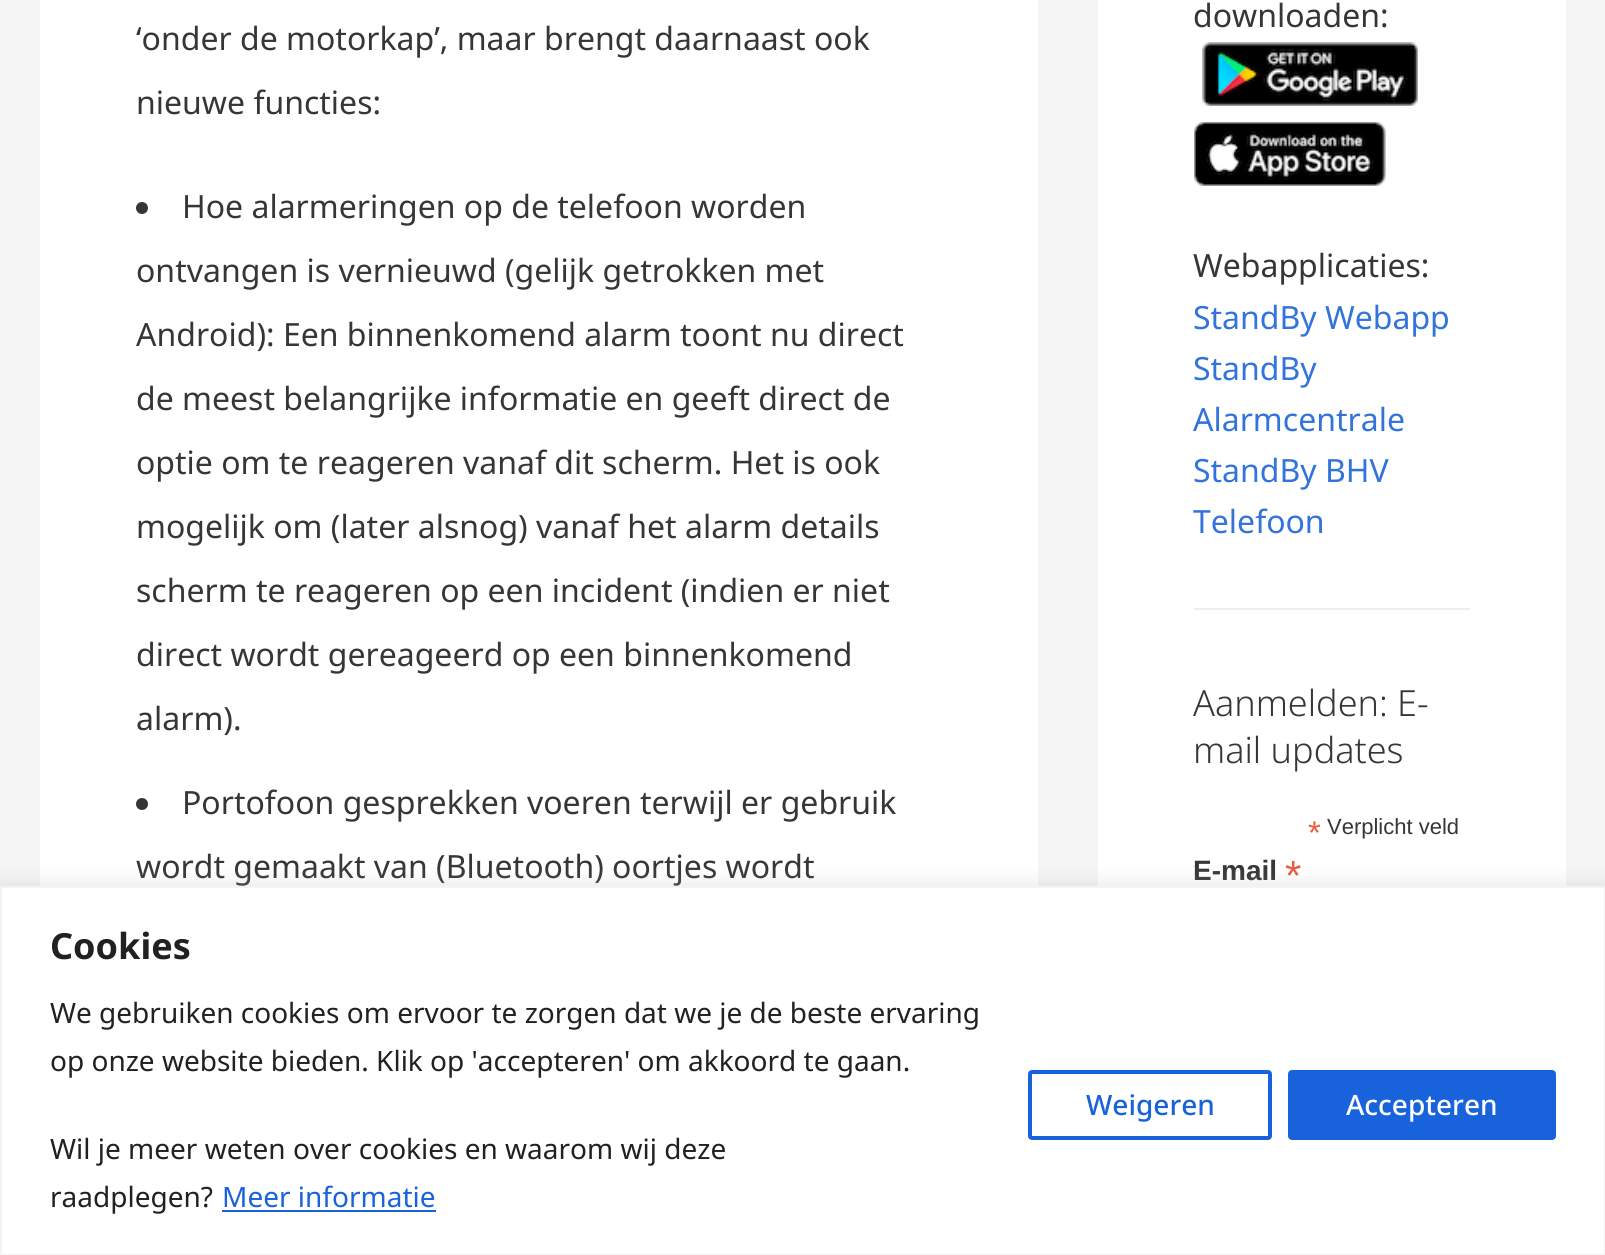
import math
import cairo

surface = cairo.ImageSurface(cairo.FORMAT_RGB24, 1605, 1255)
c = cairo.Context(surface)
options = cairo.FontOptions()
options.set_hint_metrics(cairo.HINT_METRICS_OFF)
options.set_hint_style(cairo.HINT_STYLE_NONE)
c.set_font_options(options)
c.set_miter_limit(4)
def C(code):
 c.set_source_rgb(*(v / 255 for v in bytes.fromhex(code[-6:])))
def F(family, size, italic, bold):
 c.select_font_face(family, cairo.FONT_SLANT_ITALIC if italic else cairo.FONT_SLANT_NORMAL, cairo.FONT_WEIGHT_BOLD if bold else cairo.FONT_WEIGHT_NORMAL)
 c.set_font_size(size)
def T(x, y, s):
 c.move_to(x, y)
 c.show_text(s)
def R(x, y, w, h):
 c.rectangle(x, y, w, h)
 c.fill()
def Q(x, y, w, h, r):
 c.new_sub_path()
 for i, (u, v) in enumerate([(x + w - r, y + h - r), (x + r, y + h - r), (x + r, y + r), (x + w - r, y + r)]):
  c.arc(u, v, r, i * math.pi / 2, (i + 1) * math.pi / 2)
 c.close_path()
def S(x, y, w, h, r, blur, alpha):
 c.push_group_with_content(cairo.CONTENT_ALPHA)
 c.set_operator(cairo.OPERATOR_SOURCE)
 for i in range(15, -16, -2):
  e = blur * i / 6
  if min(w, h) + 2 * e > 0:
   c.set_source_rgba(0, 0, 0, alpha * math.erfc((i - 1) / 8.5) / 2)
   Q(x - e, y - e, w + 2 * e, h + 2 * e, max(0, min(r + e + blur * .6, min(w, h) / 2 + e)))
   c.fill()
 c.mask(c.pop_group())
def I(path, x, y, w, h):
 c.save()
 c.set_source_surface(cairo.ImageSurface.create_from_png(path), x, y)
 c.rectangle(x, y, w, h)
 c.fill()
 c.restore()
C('f5f5f5')
c.paint()
C('ffffff')
R(40,0,998,886)
F('Noto Sans',32,0,0)
C('363636')
T(136,50,'‘onder de motorkap’, maar brengt daarnaast ook')
T(136,114,'nieuwe functies:')
c.new_path()
c.arc(142,208,6,0,2 * math.pi)
c.fill()
T(182,218,'Hoe alarmeringen op de telefoon worden')
T(136,282,'ontvangen is vernieuwd (gelijk getrokken met')
T(136,346,'Android): Een binnenkomend alarm toont nu direct')
T(136,410,'de meest belangrijke informatie en geeft direct de')
T(136,474,'optie om te reageren vanaf dit scherm. Het is ook')
T(136,538,'mogelijk om (later alsnog) vanaf het alarm details')
T(136,602,'scherm te reageren op een incident (indien er niet')
T(136,666,'direct wordt gereageerd op een binnenkomend')
T(136,730,'alarm).')
c.new_path()
c.arc(142,804,6,0,2 * math.pi)
c.fill()
T(182,814,'Portofoon gesprekken voeren terwijl er gebruik')
T(136,878,'wordt gemaakt van (Bluetooth) oortjes wordt')
C('ffffff')
R(1098,0,468,886)
C('363636')
T(1193,27,'downloaden:')
I('1.png',1202,42,216,64)
I('2.png',1194,122,192,64)
T(1193,277,'Webapplicaties:')
C('3273dc')
T(1193,329,'StandBy Webapp')
T(1193,380,'StandBy')
T(1193,431,'Alarmcentrale')
T(1193,482,'StandBy BHV')
T(1193,533,'Telefoon')
C('ededed')
R(1194,608,276,2)
F('Noto Sans Light',36,0,0)
C('363636')
T(1193,716,'Aanmelden: E-')
T(1193,763,'mail updates')
F('Liberation Sans',33,0,0)
C('e85c41')
T(1308,844,'*')
F('Liberation Sans',22,0,0)
C('363636')
T(1327,834,'Verplicht veld')
F('Liberation Sans',28,0,1)
T(1193,880,'E-mail')
F('Liberation Sans',42,0,0)
C('e85c41')
T(1285,890,'*')
C('acabab')
S(0,884,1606,370,0,10,.3)
C('ffffff')
c.rectangle(1,887,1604,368)
c.fill_preserve()
C('f4f4f4')
c.stroke()
F('Noto Sans',36,0,1)
C('212121')
T(50,959,'Cookies')
F('Noto Sans',28,0,0)
T(50,1023,'We gebruiken cookies om ervoor te zorgen dat we je de beste ervaring')
T(50,1071,'op onze website bieden. Klik op \'accepteren\' om akkoord te gaan.')
T(50,1159,'Wil je meer weten over cookies en waarom wij deze')
T(50,1207,'raadplegen?')
C('1863dc')
T(222,1207,'Meer informatie')
R(222,1210,214,2)
Q(1030,1072,240,66,2)
c.set_line_width(4)
c.stroke()
F('Noto Sans Medium',28,0,0)
T(1086,1115,'Weigeren')
Q(1290,1072,264,66,2)
c.fill_preserve()
c.stroke()
C('ffffff')
T(1346,1115,'Accepteren')
surface.write_to_png('o.png')
